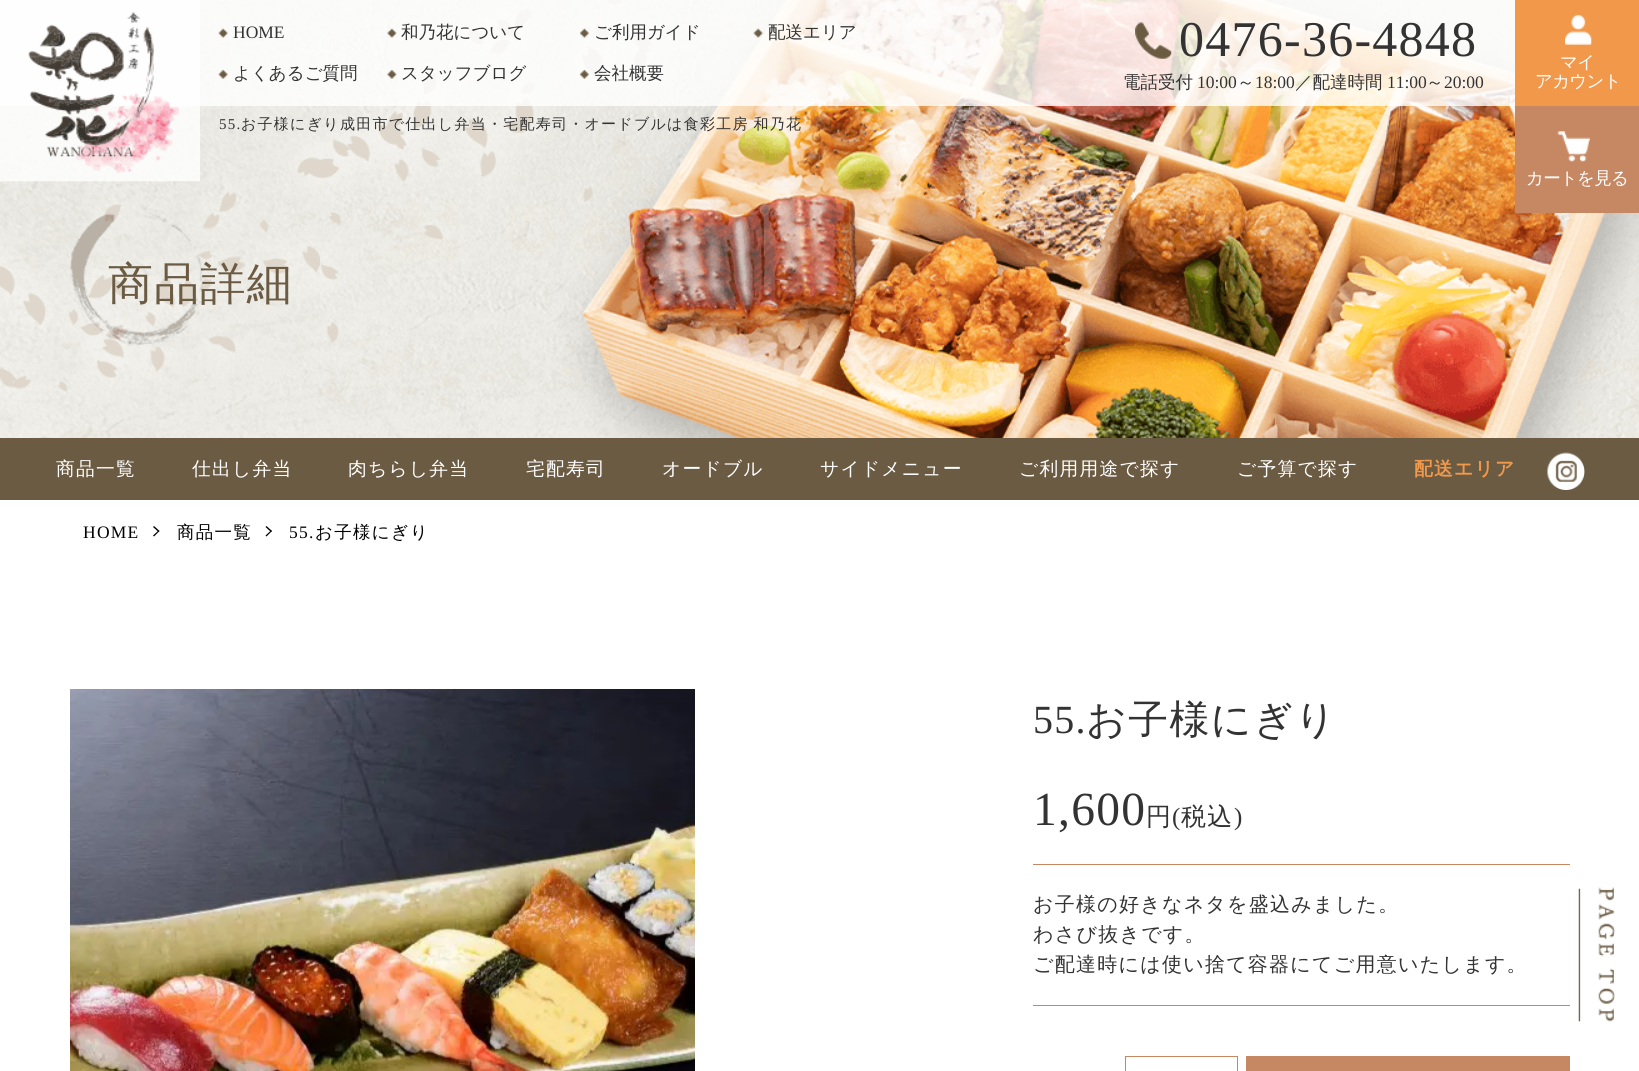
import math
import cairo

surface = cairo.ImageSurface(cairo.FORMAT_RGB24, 1639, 1071)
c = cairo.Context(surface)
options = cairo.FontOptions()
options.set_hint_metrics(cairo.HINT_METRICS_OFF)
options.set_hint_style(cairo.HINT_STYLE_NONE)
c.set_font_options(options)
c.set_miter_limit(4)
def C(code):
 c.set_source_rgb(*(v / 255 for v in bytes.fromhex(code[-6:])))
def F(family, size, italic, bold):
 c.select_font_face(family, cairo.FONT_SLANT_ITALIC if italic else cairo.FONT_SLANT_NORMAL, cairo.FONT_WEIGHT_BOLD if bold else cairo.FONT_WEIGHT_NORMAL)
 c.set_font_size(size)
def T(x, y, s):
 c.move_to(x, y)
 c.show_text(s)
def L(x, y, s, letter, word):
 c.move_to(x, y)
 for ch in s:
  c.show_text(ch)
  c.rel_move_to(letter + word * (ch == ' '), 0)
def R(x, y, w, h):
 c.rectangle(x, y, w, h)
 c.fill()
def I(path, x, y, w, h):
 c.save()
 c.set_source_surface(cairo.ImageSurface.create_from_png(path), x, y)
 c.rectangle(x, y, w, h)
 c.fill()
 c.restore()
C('ffffff')
c.paint()
I('12.png',0,0,1639,438)
c.set_source_rgba(1,1,1,0.8)
R(0,0,1515,106)
I('1.png',0,0,200,182)
I('2.png',218,28,10,10)
F('Liberation Serif',17.5,0,0)
C('333333')
T(233,38,'HOME')
I('3.png',387,28,10,10)
F('WenQuanYi Zen Hei Medium',17.5,0,0)
T(401,38,'和乃花について')
I('4.png',580,28,9,10)
T(594,38,'ご利用ガイド')
I('5.png',753,28,10,10)
T(768,38,'配送エリア')
I('6.png',218,70,10,9)
T(233,79,'よくあるご質問')
I('7.png',387,70,10,9)
T(401,79,'スタッフブログ')
I('8.png',580,70,9,9)
T(594,79,'会社概要')
I('9.png',1135,22,37,37)
F('Liberation Serif',50,0,0)
L(1179,56,'0476-36-4848',1.25,0)
C('f2984a')
R(1515,0,124,106)
I('10.png',1565,15,27,30)
F('WenQuanYi Zen Hei Medium',17.5,0,0)
C('ffffff')
L(1560,68,'マイ',-.75,0)
L(1535,87,'アカウント',-.75,0)
C('c68863')
R(1515,106,124,107)
I('11.png',1557,131,33,31)
C('ffffff')
L(1526,184,'カートを見る',-.75,0)
C('333333')
T(1123,88,'電話受付')
F('Liberation Serif',17.5,0,0)
T(1197,88,'10:00')
F('WenQuanYi Zen Hei Medium',17.5,0,0)
T(1237,88,'～')
F('Liberation Serif',17.5,0,0)
T(1255,88,'18:00')
F('WenQuanYi Zen Hei Medium',17.5,0,0)
T(1295,88,'／配達時間')
F('Liberation Serif',17.5,0,0)
T(1387,88,'11:00')
F('WenQuanYi Zen Hei Medium',17.5,0,0)
T(1426,88,'～')
F('Liberation Serif',17.5,0,0)
T(1444,88,'20:00')
F('Liberation Serif',15,0,0)
L(219,129,'55.',1.25,0)
F('WenQuanYi Zen Hei Medium',15,0,0)
L(241,129,'お子様にぎり',1.25,0)
L(340,129,'成田市で仕出し弁当・宅配寿司・オードブルは食彩工房 和乃花',1.25,-1)
F('WenQuanYi Zen Hei Medium',45,0,0)
C('6b5b43')
L(108,299,'商品詳細',1.25,0)
R(0,438,1639,62)
F('WenQuanYi Zen Hei Medium',18.75,0,0)
C('ffffff')
L(56,475,'商品一覧',1.25,0)
L(192,475,'仕出し弁当',1.25,0)
L(348,475,'肉ちらし弁当',1.25,0)
L(526,475,'宅配寿司',1.25,0)
L(662,475,'オードブル',1.25,0)
L(820,475,'サイドメニュー',1.25,0)
L(1019,475,'ご利用用途で探す',1.25,0)
L(1237,475,'ご予算で探す',1.25,0)
F('WenQuanYi Zen Hei',18.75,0,1)
C('f2984a')
L(1414,475,'配送エリア',1.25,0)
I('13.png',1547,452,38,38)
F('Liberation Serif',17.5,0,0)
C('000000')
L(83,538,'HOME',1.25,0)
c.new_path()
c.move_to(154,526)
c.line_to(159.5,531)
c.line_to(158.5,532)
c.line_to(153,527)
c.close_path()
c.fill()
c.new_path()
c.move_to(158.5,530.5)
c.line_to(159.5,531)
c.line_to(154,536.5)
c.line_to(153,535.5)
c.close_path()
c.fill()
F('WenQuanYi Zen Hei Medium',17.5,0,0)
L(177,538,'商品一覧',1.25,0)
c.new_path()
c.move_to(266.5,526)
c.line_to(272,531)
c.line_to(271,532)
c.line_to(265.5,527)
c.close_path()
c.fill()
c.new_path()
c.move_to(271,530.5)
c.line_to(272,531)
c.line_to(266.5,536.5)
c.line_to(265.5,535.5)
c.close_path()
c.fill()
F('Liberation Serif',17.5,0,0)
L(289,538,'55.',1.25,0)
F('WenQuanYi Zen Hei Medium',17.5,0,0)
L(315,538,'お子様にぎり',1.25,0)
I('14.png',70,689,625,382)
F('Liberation Serif',40,0,0)
C('333333')
L(1033,733,'55.',1.25,0)
F('WenQuanYi Zen Hei Medium',40,0,0)
L(1086,733,'お子様にぎり',1.25,0)
F('Liberation Serif',47.5,0,0)
L(1033,825,'1,600',1.25,0)
F('WenQuanYi Zen Hei Medium',25,0,0)
L(1146,825,'円',1.25,0)
F('Liberation Serif',25,0,0)
L(1172,825,'(',1.25,0)
F('WenQuanYi Zen Hei Medium',25,0,0)
L(1181,825,'税込',1.25,0)
F('Liberation Serif',25,0,0)
L(1234,825,')',1.25,0)
C('c68863')
R(1033,864,537,1)
R(1033,1005,537,1)
F('WenQuanYi Zen Hei Medium',20,0,0)
C('333333')
L(1033,911,'お子様の好きなネタを盛込みました。',1.25,0)
L(1033,941,'わさび抜きです。',1.25,0)
L(1033,971,'ご配達時には使い捨て容器にてご用意いたします。',1.25,0)
c.rectangle(1125.5,1056.5,112,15)
C('c68863')
c.set_line_width(1)
c.stroke()
R(1246,1056,324,15)
I('15.png',1578,887,37,135)
surface.write_to_png('o.png')
